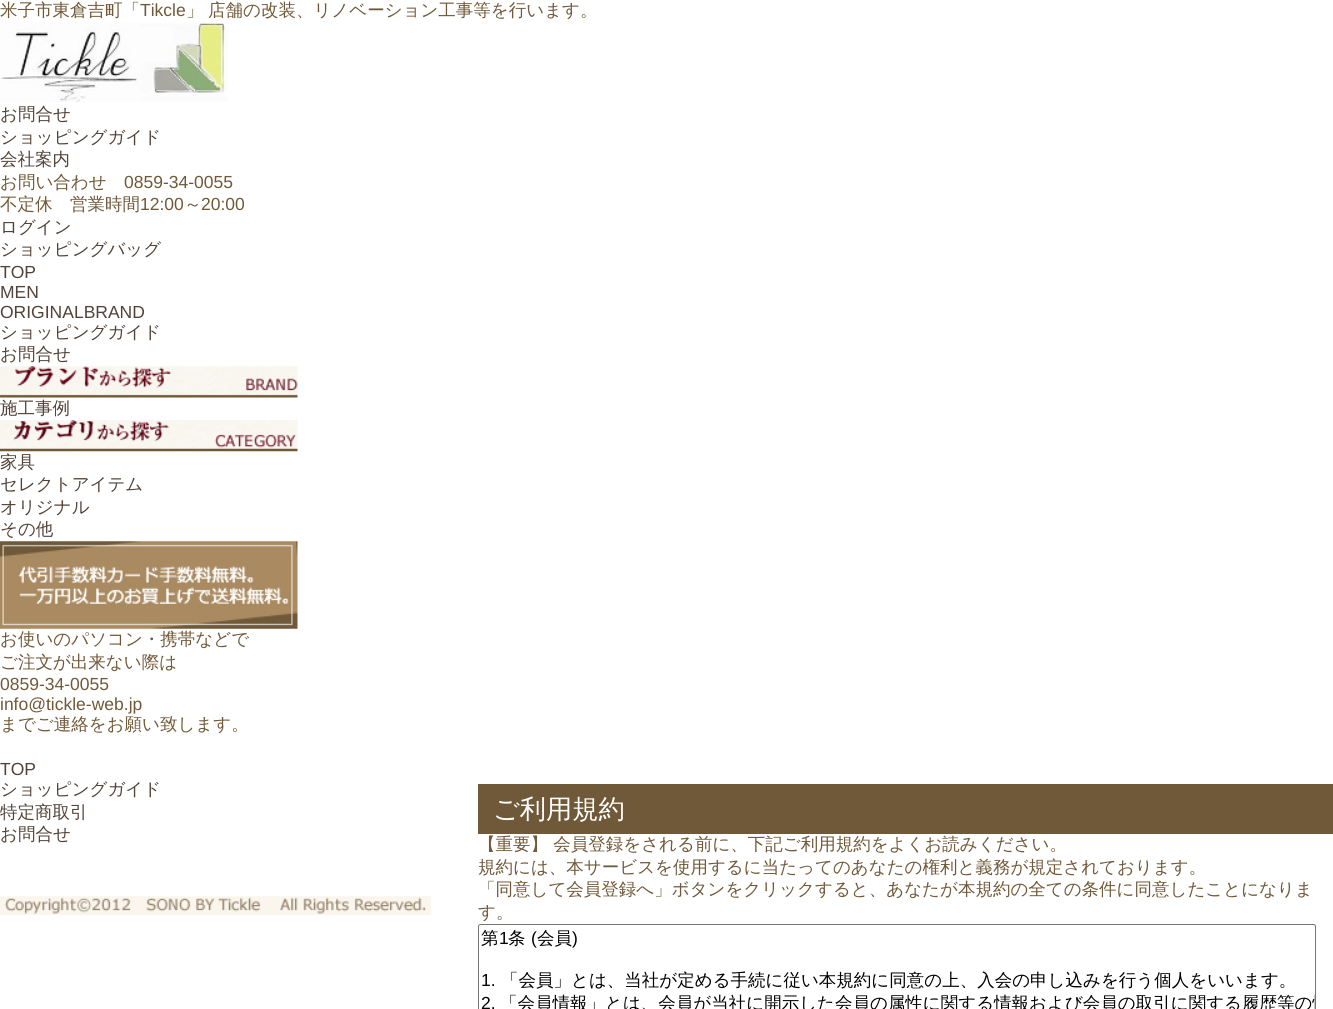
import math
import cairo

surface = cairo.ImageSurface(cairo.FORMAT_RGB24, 1333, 1009)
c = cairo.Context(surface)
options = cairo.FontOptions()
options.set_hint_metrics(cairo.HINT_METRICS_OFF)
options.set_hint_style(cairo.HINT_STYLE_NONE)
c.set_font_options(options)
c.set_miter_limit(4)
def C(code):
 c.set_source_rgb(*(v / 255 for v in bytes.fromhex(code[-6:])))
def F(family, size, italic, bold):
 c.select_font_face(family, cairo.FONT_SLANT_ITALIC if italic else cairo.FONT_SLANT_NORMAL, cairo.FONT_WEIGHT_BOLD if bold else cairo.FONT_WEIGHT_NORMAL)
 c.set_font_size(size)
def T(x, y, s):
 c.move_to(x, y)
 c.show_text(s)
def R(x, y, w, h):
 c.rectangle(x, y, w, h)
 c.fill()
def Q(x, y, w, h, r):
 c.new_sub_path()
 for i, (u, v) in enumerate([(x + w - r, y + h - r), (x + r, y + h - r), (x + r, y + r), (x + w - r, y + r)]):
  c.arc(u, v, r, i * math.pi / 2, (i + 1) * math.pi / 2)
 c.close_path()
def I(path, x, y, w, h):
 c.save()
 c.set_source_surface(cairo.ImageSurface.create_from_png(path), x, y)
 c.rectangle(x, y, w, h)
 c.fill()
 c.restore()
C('ffffff')
c.paint()
F('WenQuanYi Zen Hei Medium',17.5,0,0)
C('705939')
T(0,16,'米子市東倉吉町「')
F('Liberation Sans',17.5,0,0)
T(140,16,'Tikcle')
F('WenQuanYi Zen Hei Medium',17.5,0,0)
T(186,16,'」')
T(208,16,'店舗の改装、リノベーション工事等を行います。')
I('1.png',0,22,228,81)
C('524338')
T(0,120,'お問合せ')
T(0,143,'ショッピングガイド')
T(0,165,'会社案内')
C('705939')
T(0,188,'お問い合わせ')
F('Liberation Sans',17.5,0,0)
T(124,188,'0859-34-0055')
F('WenQuanYi Zen Hei Medium',17.5,0,0)
T(0,210,'不定休')
T(70,210,'営業時間')
F('Liberation Sans',17.5,0,0)
T(140,210,'12:00')
F('WenQuanYi Zen Hei Medium',17.5,0,0)
T(184,210,'～')
F('Liberation Sans',17.5,0,0)
T(201,210,'20:00')
F('WenQuanYi Zen Hei Medium',17.5,0,0)
C('524338')
T(0,233,'ログイン')
T(0,255,'ショッピングバッグ')
F('Liberation Sans',17.5,0,0)
T(0,278,'TOP')
T(0,298,'MEN')
T(0,318,'ORIGINALBRAND')
F('WenQuanYi Zen Hei Medium',17.5,0,0)
T(0,338,'ショッピングガイド')
T(0,360,'お問合せ')
I('2.png',0,366,298,32)
T(0,414,'施工事例')
I('3.png',0,420,298,32)
T(0,468,'家具')
T(0,490,'セレクトアイテム')
T(0,513,'オリジナル')
T(0,535,'その他')
I('4.png',0,541,298,88)
C('705939')
T(0,645,'お使いのパソコン・携帯などで')
T(0,668,'ご注文が出来ない際は')
F('Liberation Sans',17.5,0,0)
T(0,690,'0859-34-0055')
T(0,710,'info@tickle-web.jp')
F('WenQuanYi Zen Hei Medium',17.5,0,0)
T(0,730,'までご連絡をお願い致します。')
R(478,784,855,50)
F('WenQuanYi Zen Hei Medium',26.25,0,0)
C('ffffff')
T(493,818,'ご利用規約')
F('WenQuanYi Zen Hei Medium',17.5,0,0)
C('705939')
T(478,850,'【重要】 会員登録をされる前に、下記ご利用規約をよくお読みください。')
T(478,873,'規約には、本サービスを使用するに当たってのあなたの権利と義務が規定されております。')
T(478,895,'「同意して会員登録へ」ボタンをクリックすると、あなたが本規約の全ての条件に同意したことになりま')
T(478,918,'す。')
Q(478.5,924.5,837,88,2)
C('767676')
c.set_line_width(1)
c.stroke()
C('000000')
T(481,944,'第')
F('Liberation Sans',17.5,0,0)
T(499,944,'1')
F('WenQuanYi Zen Hei Medium',17.5,0,0)
T(508,944,'条')
F('Liberation Sans',17.5,0,0)
T(531,944,'(')
F('WenQuanYi Zen Hei Medium',17.5,0,0)
T(537,944,'会員')
F('Liberation Sans',17.5,0,0)
T(572,944,')')
T(481,986,'1.')
F('WenQuanYi Zen Hei Medium',17.5,0,0)
T(501,986,'「会員」とは、当社が定める手続に従い本規約に同意の上、入会の申し込みを行う個人をいいます。')
F('Liberation Sans',17.5,0,0)
T(481,1009,'2.')
c.save()
c.rectangle(479,925,836,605)
c.clip()
F('WenQuanYi Zen Hei Medium',17.5,0,0)
T(500,1009,'「会員情報」とは、会員が当社に開示した会員の属性に関する情報および会員の取引に関する履歴等の情')
c.restore()
C('524338')
T(0,775,'TOP')
F('WenQuanYi Zen Hei Medium',17.5,0,0)
T(0,795,'ショッピングガイド')
T(0,818,'特定商取引')
T(0,840,'お問合せ')
I('5.png',0,896,432,19)
surface.write_to_png('o.png')
